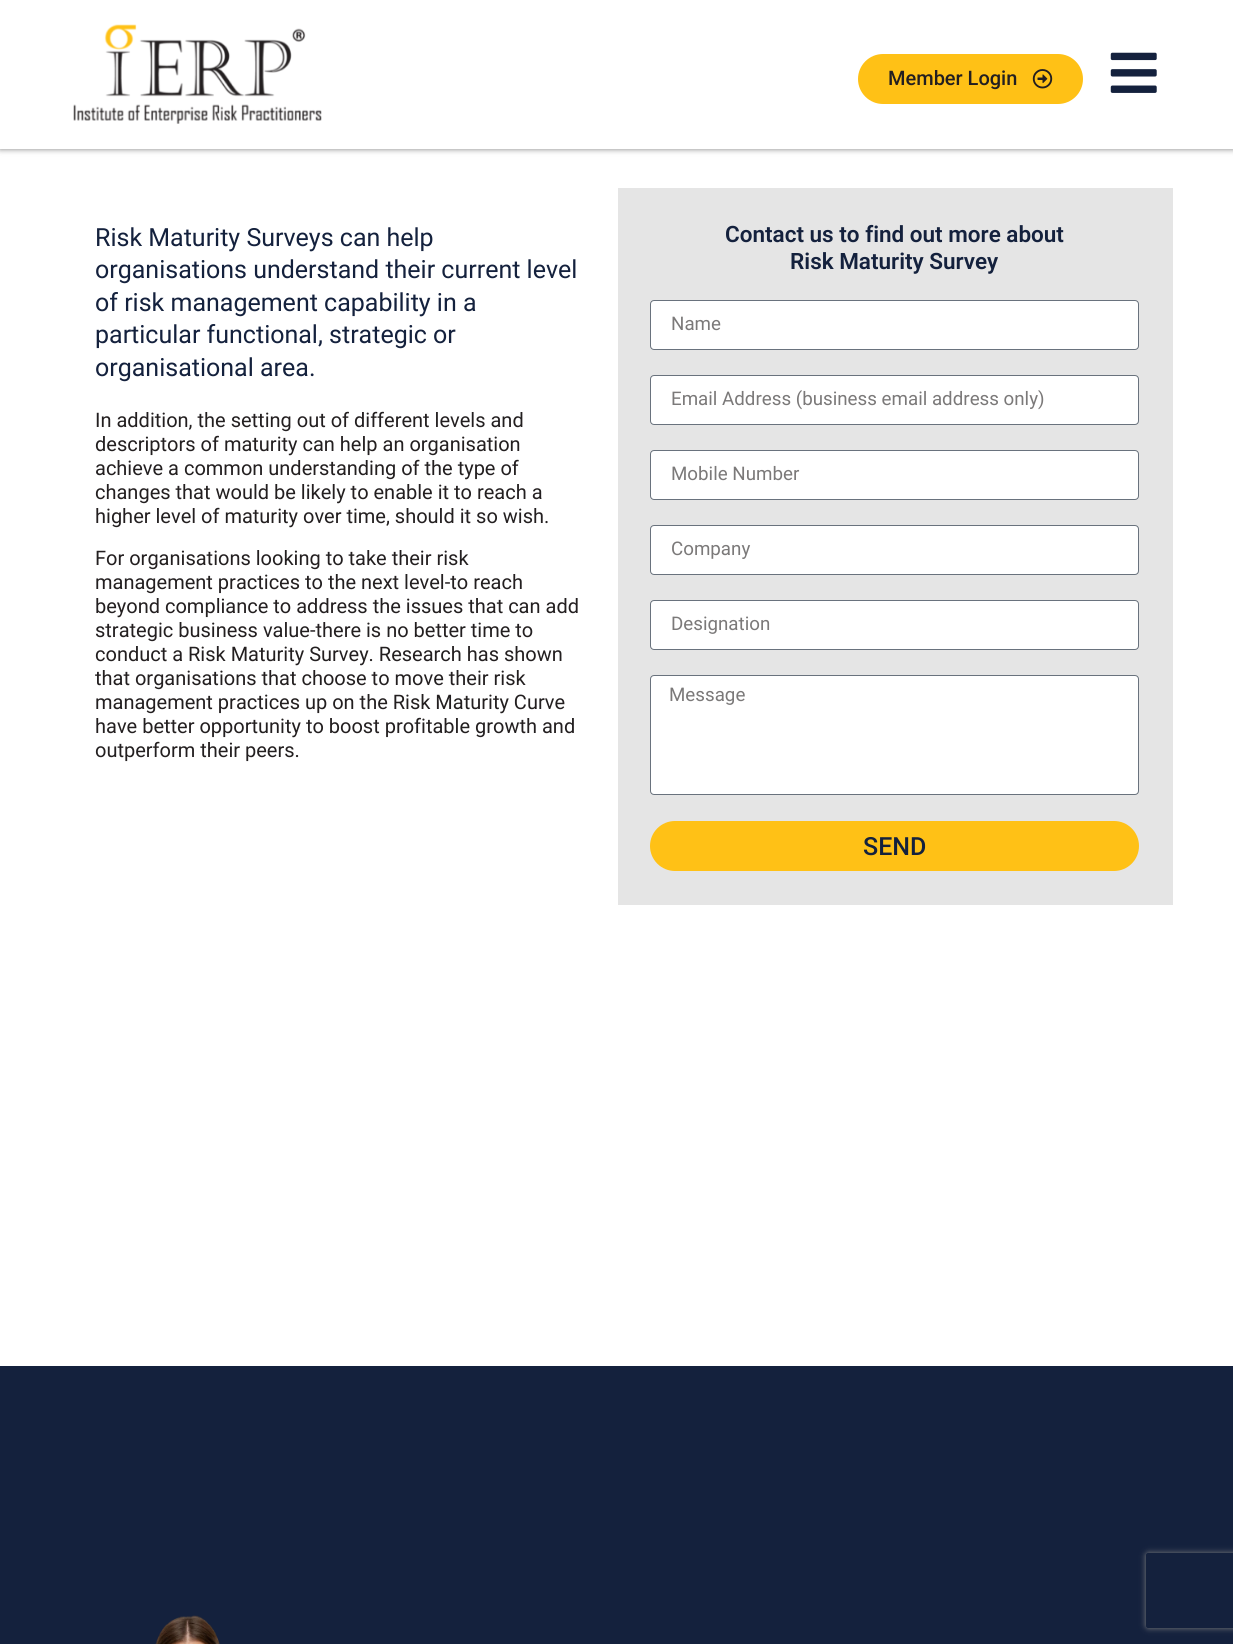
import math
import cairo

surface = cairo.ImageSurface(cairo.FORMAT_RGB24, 1233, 1644)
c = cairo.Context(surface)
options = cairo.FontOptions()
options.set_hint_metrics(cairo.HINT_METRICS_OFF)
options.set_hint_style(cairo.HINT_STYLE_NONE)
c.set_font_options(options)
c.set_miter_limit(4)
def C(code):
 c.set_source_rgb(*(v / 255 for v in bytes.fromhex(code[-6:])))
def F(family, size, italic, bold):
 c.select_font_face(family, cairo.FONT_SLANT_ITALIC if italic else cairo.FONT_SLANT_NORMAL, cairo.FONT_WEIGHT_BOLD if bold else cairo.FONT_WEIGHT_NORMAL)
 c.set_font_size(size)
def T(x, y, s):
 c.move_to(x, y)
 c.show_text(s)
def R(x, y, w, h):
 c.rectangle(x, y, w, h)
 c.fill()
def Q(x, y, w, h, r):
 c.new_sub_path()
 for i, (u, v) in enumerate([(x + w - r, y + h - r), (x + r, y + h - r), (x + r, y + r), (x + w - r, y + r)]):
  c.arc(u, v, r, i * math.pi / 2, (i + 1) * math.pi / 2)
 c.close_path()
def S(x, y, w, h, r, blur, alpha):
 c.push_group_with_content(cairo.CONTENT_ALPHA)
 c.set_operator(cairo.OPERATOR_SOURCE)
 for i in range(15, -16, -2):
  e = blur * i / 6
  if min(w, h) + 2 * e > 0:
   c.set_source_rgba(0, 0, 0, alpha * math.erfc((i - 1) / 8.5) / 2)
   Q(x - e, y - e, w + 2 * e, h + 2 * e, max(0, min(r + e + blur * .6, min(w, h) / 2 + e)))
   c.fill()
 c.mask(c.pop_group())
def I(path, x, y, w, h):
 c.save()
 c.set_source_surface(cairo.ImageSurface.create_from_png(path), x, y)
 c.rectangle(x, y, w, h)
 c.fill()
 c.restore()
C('ffffff')
c.paint()
C('000000')
S(0,0,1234,149,0,3,.5)
C('ffffff')
R(0,0,1233,149)
I('1.png',73,24,249,100)
C('ffc116')
Q(858,54,225,50,25)
c.fill()
F('Roboto Medium',20,0,0)
C('231f20')
T(888,85,'Member Login')
I('2.png',1032,69,21,20)
I('3.png',1110,52,47,41)
F('Roboto',25,0,0)
C('14213d')
T(95,246,'Risk Maturity Surveys can help')
T(95,278,'organisations understand their current level')
T(95,311,'of risk management capability in a')
T(95,343,'particular functional, strategic or')
T(95,376,'organisational area.')
F('Roboto',20,0,0)
C('231f20')
T(95,427,'In addition, the setting out of different levels and')
T(95,451,'descriptors of maturity can help an organisation')
T(95,475,'achieve a common understanding of the type of')
T(95,499,'changes that would be likely to enable it to reach a')
T(95,523,'higher level of maturity over time, should it so wish.')
T(95,565,'For organisations looking to take their risk')
T(95,589,'management practices to the next level-to reach')
T(95,613,'beyond compliance to address the issues that can add')
T(95,637,'strategic business value-there is no better time to')
T(95,661,'conduct a Risk Maturity Survey. Research has shown')
T(95,685,'that organisations that choose to move their risk')
T(95,709,'management practices up on the Risk Maturity Curve')
T(95,733,'have better opportunity to boost profitable growth and')
T(95,757,'outperform their peers.')
C('e5e5e5')
R(618,188,555,717)
F('Roboto SemiBold',22.5,0,0)
C('14213d')
T(725,242,'Contact us to find out more about')
T(790,269,'Risk Maturity Survey')
C('ffffff')
Q(650.5,300.5,488,49,3.5)
c.fill_preserve()
C('69727d')
c.set_line_width(1)
c.stroke()
F('Roboto',18.75,0,0)
C('7b7979')
T(671,330,'Name')
C('ffffff')
Q(650.5,375.5,488,49,3.5)
c.fill_preserve()
C('69727d')
c.stroke()
C('7b7979')
T(671,405,'Email Address (business email address only)')
C('ffffff')
Q(650.5,450.5,488,49,3.5)
c.fill_preserve()
C('69727d')
c.stroke()
C('7b7979')
T(671,480,'Mobile Number')
C('ffffff')
Q(650.5,525.5,488,49,3.5)
c.fill_preserve()
C('69727d')
c.stroke()
C('7b7979')
T(671,555,'Company')
C('ffffff')
Q(650.5,600.5,488,49,3.5)
c.fill_preserve()
C('69727d')
c.stroke()
C('7b7979')
T(671,630,'Designation')
C('ffffff')
Q(650.5,675.5,488,119,3.5)
c.fill_preserve()
C('69727d')
c.stroke()
C('7b7979')
T(669,701,'Message')
C('ffc116')
Q(650,821,489,50,25)
c.fill()
F('Roboto Medium',25,0,0)
C('14213d')
T(863,855,'SEND')
R(0,1366,1233,278)
c.save()
c.set_fill_rule(cairo.FILL_RULE_EVEN_ODD)
c.new_path()
c.move_to(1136,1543)
c.line_to(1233,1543)
c.line_to(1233,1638)
c.line_to(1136,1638)
c.close_path()
c.move_to(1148.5,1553)
c.line_to(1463.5,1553)
c.curve_to(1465,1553,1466,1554,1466,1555.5)
c.line_to(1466,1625.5)
c.curve_to(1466,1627,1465,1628,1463.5,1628)
c.line_to(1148.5,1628)
c.curve_to(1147,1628,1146,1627,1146,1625.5)
c.line_to(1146,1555.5)
c.curve_to(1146,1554,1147,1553,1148.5,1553)
c.close_path()
c.clip()
C('808080')
S(1146,1553,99,75,2.5,3,1)
c.restore()
I('4.png',155,1615,65,29)
surface.write_to_png('o.png')
